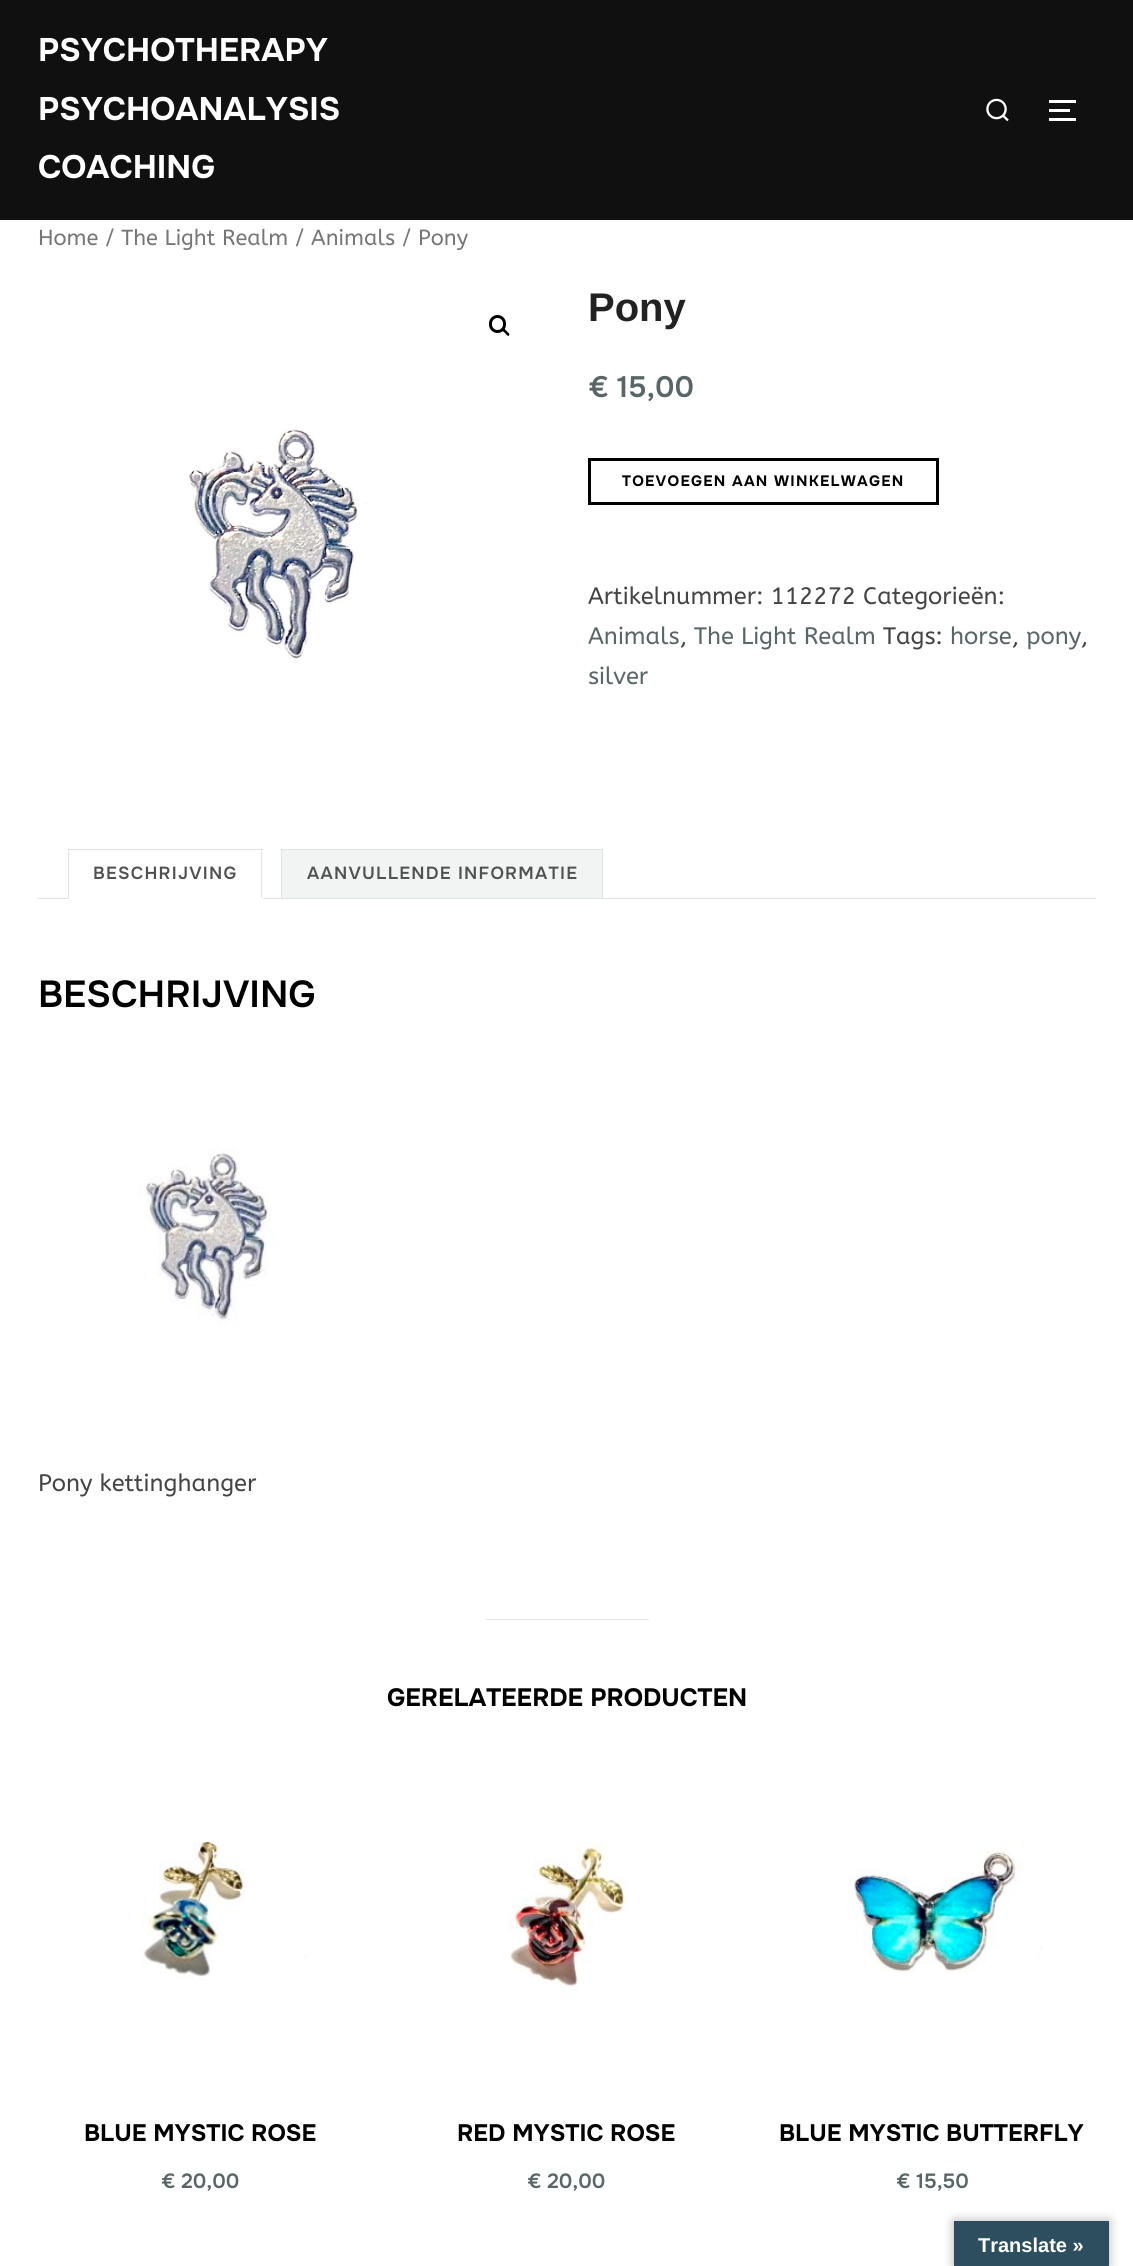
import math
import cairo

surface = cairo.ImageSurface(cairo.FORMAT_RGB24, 1133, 2266)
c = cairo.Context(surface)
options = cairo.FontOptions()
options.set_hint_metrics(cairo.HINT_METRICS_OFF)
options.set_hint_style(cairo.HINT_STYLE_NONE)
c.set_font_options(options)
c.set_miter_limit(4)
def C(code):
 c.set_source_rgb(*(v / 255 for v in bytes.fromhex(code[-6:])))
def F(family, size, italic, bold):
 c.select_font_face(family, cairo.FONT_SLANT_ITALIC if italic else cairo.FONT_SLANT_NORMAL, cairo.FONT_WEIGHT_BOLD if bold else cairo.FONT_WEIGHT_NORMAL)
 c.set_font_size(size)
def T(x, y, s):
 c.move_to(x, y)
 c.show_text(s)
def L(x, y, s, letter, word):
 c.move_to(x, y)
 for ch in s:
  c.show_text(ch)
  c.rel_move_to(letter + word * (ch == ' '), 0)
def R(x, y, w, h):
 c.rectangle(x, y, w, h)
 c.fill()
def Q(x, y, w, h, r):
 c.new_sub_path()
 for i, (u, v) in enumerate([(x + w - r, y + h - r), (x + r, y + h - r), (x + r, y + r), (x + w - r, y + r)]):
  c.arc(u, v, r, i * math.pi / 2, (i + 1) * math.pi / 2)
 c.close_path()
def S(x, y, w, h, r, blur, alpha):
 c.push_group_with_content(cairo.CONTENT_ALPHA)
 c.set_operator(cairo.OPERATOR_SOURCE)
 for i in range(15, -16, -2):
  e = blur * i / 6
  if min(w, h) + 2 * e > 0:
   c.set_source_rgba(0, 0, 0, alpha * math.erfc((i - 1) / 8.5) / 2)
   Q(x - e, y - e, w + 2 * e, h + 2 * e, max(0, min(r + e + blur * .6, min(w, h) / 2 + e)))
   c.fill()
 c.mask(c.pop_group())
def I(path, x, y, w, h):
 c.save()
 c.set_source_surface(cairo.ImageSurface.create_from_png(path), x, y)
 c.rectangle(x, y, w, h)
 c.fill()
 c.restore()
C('ffffff')
c.paint()
C('101010')
R(0,0,1133,220)
F('Onest',32.5,0,1)
C('ffffff')
T(38,61,'PSYCHOTHERAPY')
T(38,120,'PSYCHOANALYSIS')
T(38,178,'COACHING')
I('1.png',986,98,23,24)
R(1049,100,27,3)
R(1049,109,21,3)
R(1049,118,27,3)
F('ABeeZee',21.8,0,0)
C('767676')
T(38,245,'Home / The Light Realm / Animals / Pony')
Q(490.5,316.5,14,15,7)
C('000000')
c.set_line_width(3)
c.stroke()
c.new_path()
c.move_to(502,328.5)
c.curve_to(503.5,327,506,330.5,506.5,331)
c.curve_to(507.5,332,510.5,334,509,335.5)
c.curve_to(508,337,505.5,333.5,505,333)
c.curve_to(504,332,500.5,330,502,328.5)
c.close_path()
c.fill()
I('2.png',189,429,180,230)
F('Liberation Sans',40,0,1)
C('222222')
T(588,321,'Pony')
F('Onest SemiBold',29.5,0,0)
C('596668')
T(588,397,'€ 15,00')
c.rectangle(589.5,459.5,348,44)
C('000000')
c.stroke()
F('Onest',15,0,1)
L(622,486,'TOEVOEGEN AAN WINKELWAGEN',1.25,0)
F('ABeeZee',23.75,0,0)
C('444444')
T(588,604,'Artikelnummer: 112272 Categorieën:')
C('596668')
T(588,644,'Animals')
C('444444')
T(680,644,',')
C('596668')
T(694,644,'The Light Realm')
C('444444')
T(883,644,'Tags:')
C('596668')
T(950,644,'horse')
C('444444')
T(1012,644,',')
C('596668')
T(1026,644,'pony')
C('444444')
T(1081,644,',')
C('596668')
T(588,684,'silver')
C('dee3e7')
R(68,849,195,1)
C('f2f3f3')
c.rectangle(281.5,849.5,321,49)
c.fill_preserve()
C('dee3e7')
c.set_line_width(1)
c.stroke()
R(38,898,1058,1)
R(261,849,1,50)
C('ffffff')
R(68,898,195,1)
C('dee3e7')
R(68,849,1,50)
F('Onest SemiBold',17.5,0,0)
C('515151')
L(93,879,'BESCHRIJVING',1.25,0)
L(307,879,'AANVULLENDE INFORMATIE',1.25,0)
F('Onest SemiBold',37.5,0,0)
C('000000')
T(38,1007,'BESCHRIJVING')
I('3.png',138,1147,139,179)
F('ABeeZee',23.75,0,0)
C('444444')
T(38,1491,'Pony kettinghanger')
C('e6e6e6')
R(486,1619,163,1)
F('Onest',25,0,1)
C('000000')
T(387,1706,'GERELATEERDE PRODUCTEN')
I('4.png',141,1841,166,140)
F('Onest',23.75,0,1)
T(84,2141,'BLUE MYSTIC ROSE')
F('Onest SemiBold',20.5,0,0)
C('596668')
T(161,2188,'€ 20,00')
I('5.png',507,1842,122,157)
F('Onest',23.75,0,1)
C('000000')
T(457,2141,'RED MYSTIC ROSE')
F('Onest SemiBold',20.5,0,0)
C('596668')
T(527,2188,'€ 20,00')
I('6.png',849,1842,194,131)
F('Onest',23.75,0,1)
C('000000')
T(779,2141,'BLUE MYSTIC BUTTERFLY')
F('Onest SemiBold',20.5,0,0)
C('596668')
T(896,2188,'€ 15,50')
C('000000')
S(954,2221,155,45,0,5.5,.3)
C('2c4e5e')
R(954,2221,155,45)
F('Liberation Sans',20,0,1)
C('ffffff')
T(978,2252,'Translate »')
surface.write_to_png('o.png')
